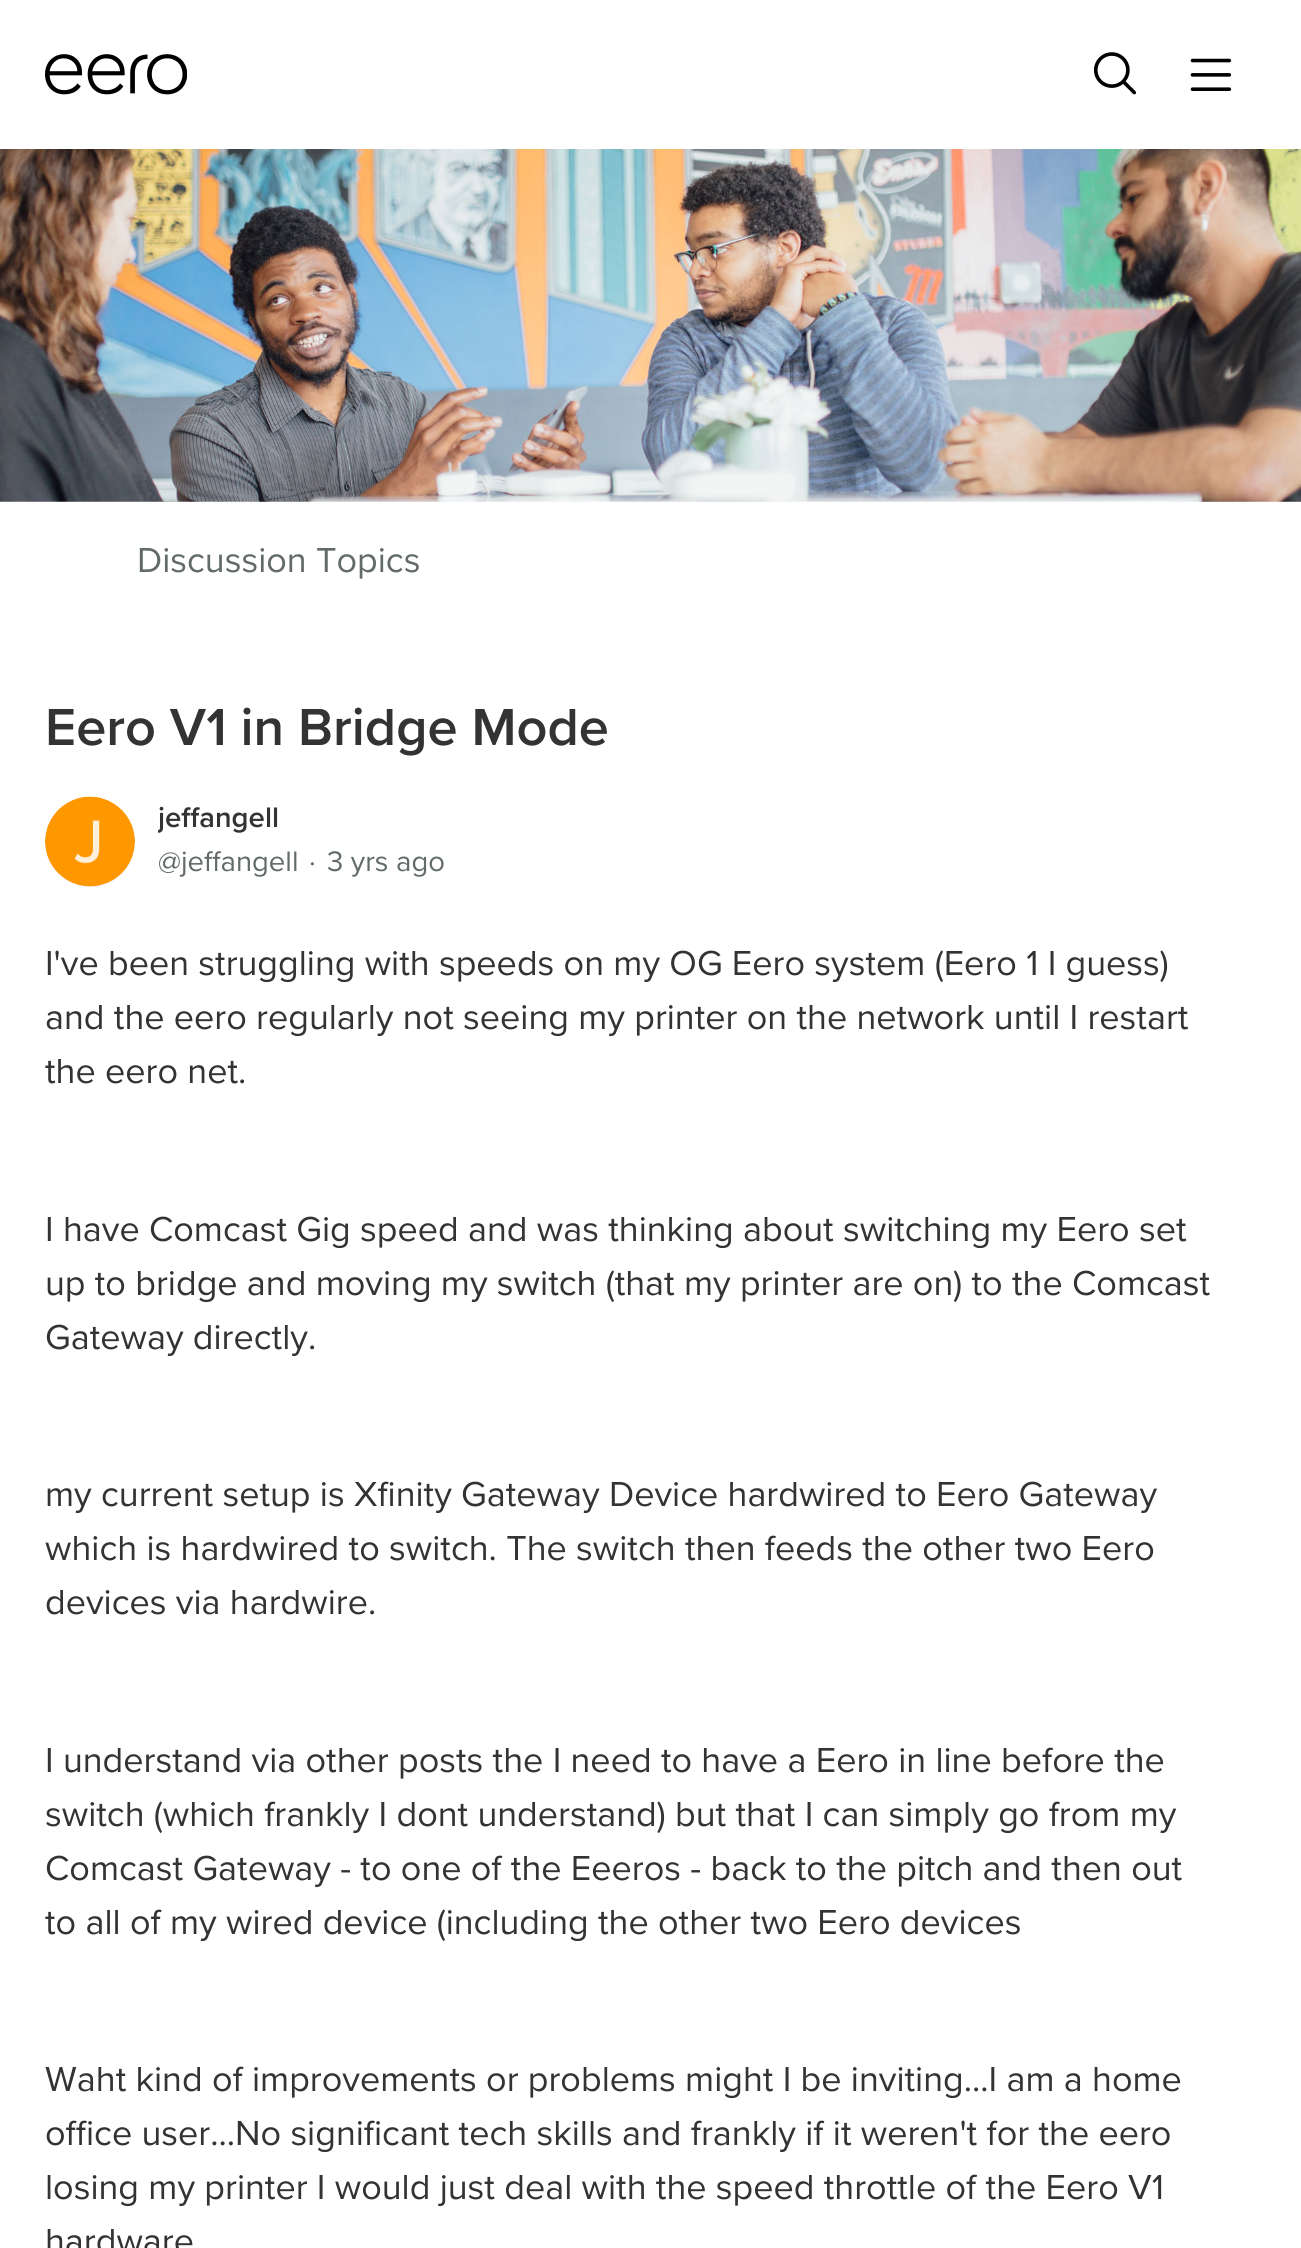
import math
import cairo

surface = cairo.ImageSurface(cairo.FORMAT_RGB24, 1301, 2248)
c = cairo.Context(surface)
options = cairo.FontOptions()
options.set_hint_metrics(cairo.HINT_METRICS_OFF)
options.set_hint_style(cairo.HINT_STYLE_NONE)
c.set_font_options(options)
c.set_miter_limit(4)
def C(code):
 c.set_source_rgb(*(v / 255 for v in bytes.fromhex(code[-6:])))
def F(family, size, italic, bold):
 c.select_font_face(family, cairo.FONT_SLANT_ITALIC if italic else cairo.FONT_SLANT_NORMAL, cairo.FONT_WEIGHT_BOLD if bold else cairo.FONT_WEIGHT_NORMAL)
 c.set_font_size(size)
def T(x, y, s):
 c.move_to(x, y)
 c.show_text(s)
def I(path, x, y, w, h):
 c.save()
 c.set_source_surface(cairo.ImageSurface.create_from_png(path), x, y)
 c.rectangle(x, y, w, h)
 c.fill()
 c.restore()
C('ffffff')
c.paint()
I('1.png',45,54,142,41)
I('2.png',1093,52,44,43)
I('3.png',1190,58,42,33)
I('4.png',0,149,1301,353)
F('Proxima Nova',36,0,0)
C('626a6a')
T(137,572,'Discussion Topics')
F('Proxima Nova SemiBold',54,0,0)
C('333333')
T(45,745,'Eero V1 in Bridge Mode')
C('efefef')
c.new_path()
c.arc(90,842,45,0,2 * math.pi)
c.fill()
I('5.png',45,796,90,91)
c.save()
c.rectangle(158,797,1055,90)
c.clip()
F('Proxima Nova SemiBold',29.25,0,0)
C('333333')
T(158,827,'jeffangell')
c.restore()
F('Proxima Nova',29.25,0,0)
C('626a6a')
T(158,871,'@jeffangell')
T(309,871,'·')
T(327,871,'3 yrs ago')
F('Proxima Nova',36,0,0)
C('333333')
T(45,975,'I\'ve been struggling with speeds on my OG Eero system (Eero 1 I guess)')
T(45,1029,'and the eero regularly not seeing my printer on the network until I restart')
T(45,1083,'the eero net.')
T(45,1241,'I have Comcast Gig speed and was thinking about switching my Eero set')
T(45,1295,'up to bridge and moving my switch (that my printer are on) to the Comcast')
T(45,1349,'Gateway directly.')
T(45,1506,'my current setup is Xfinity Gateway Device hardwired to Eero Gateway')
T(45,1560,'which is hardwired to switch. The switch then feeds the other two Eero')
T(45,1614,'devices via hardwire.')
T(45,1772,'I understand via other posts the I need to have a Eero in line before the')
T(45,1826,'switch (which frankly I dont understand) but that I can simply go from my')
T(45,1880,'Comcast Gateway - to one of the Eeeros - back to the pitch and then out')
T(45,1934,'to all of my wired device (including the other two Eero devices')
T(45,2091,'Waht kind of improvements or problems might I be inviting...I am a home')
T(45,2145,'office user...No significant tech skills and frankly if it weren\'t for the eero')
T(45,2199,'losing my printer I would just deal with the speed throttle of the Eero V1')
T(45,2253,'hardware')
surface.write_to_png('o.png')
